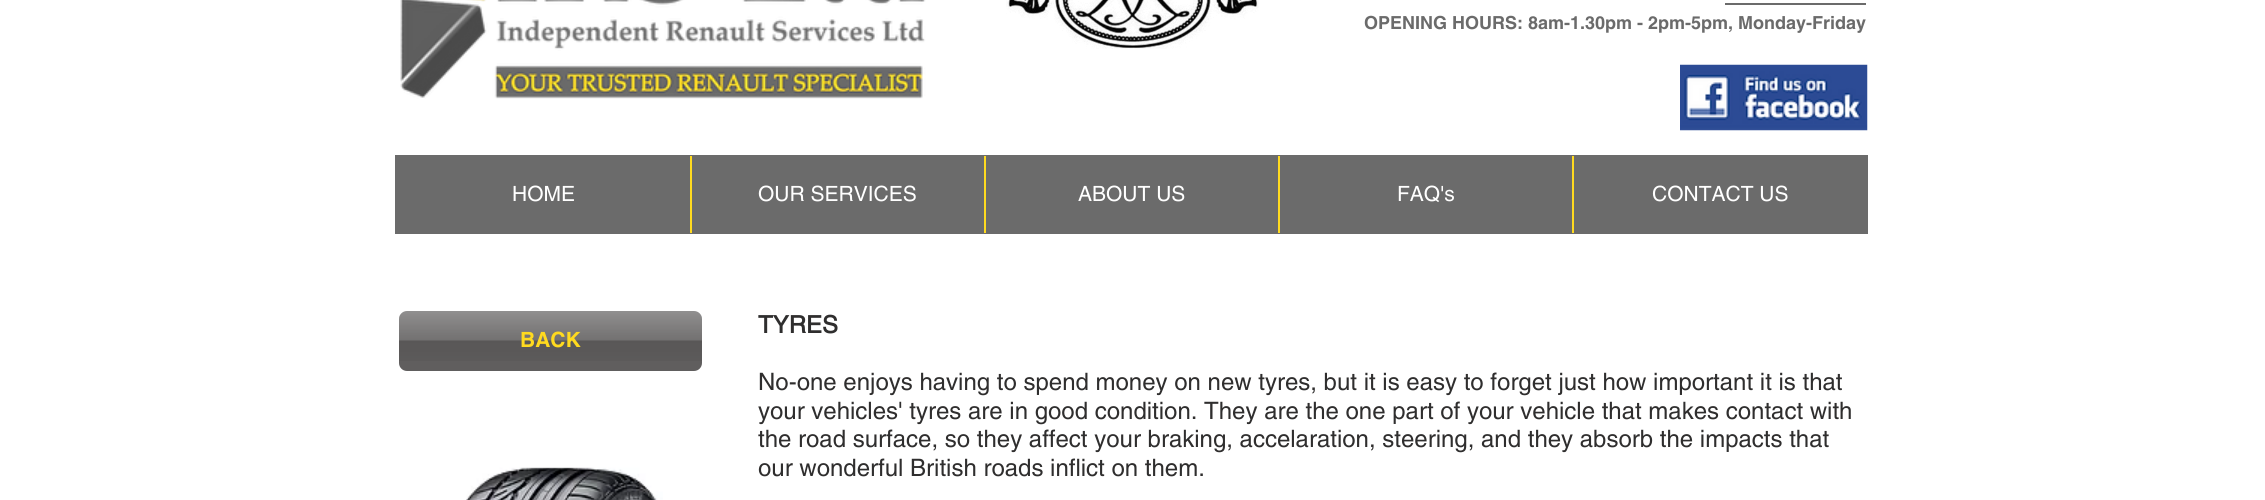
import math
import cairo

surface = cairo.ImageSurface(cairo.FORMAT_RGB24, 2265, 500)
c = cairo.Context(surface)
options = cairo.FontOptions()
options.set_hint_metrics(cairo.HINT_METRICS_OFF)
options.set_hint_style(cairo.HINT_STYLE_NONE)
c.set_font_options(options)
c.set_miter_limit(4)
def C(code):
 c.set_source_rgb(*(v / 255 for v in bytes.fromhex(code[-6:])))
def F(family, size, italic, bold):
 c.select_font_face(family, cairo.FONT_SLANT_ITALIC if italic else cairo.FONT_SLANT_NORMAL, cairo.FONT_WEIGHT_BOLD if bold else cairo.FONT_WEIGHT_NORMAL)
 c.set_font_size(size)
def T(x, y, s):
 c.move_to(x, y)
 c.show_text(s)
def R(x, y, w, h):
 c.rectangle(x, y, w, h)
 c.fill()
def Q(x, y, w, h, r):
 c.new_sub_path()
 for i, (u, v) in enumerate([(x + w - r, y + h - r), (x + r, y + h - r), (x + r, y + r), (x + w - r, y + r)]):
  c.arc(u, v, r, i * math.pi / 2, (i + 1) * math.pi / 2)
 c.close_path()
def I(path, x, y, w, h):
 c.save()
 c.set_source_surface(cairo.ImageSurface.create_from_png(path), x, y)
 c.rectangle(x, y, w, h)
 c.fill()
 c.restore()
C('ffffff')
c.paint()
I('1.png',400,0,526,99)
I('2.png',1006,0,253,49)
C('6b6b6b')
R(1725,3,141,2)
F('helvetica',18,0,1)
T(1364,29,'OPENING HOURS: 8am-1.30pm - 2pm-5pm, Monday-Friday')
I('3.png',1680,64,188,67)
R(395,155,1473,79)
F('helvetica',21,0,0)
C('ffffff')
T(512,201,'HOME')
C('ffda1f')
R(690,156,2,77)
C('ffffff')
T(758,201,'OUR SERVICES')
C('ffda1f')
R(984,156,2,77)
C('ffffff')
T(1078,201,'ABOUT US')
C('ffda1f')
R(1278,156,2,77)
C('ffffff')
T(1397,201,'FAQ\'s')
C('ffda1f')
R(1572,156,2,77)
C('ffffff')
T(1652,201,'CONTACT US')
C('605e5e')
Q(399,311,303,60,8)
c.fill()
I('4.png',399,311,303,50)
F('helvetica',21,0,1)
C('ffda1f')
T(520,347,'BACK')
F('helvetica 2',24,0,1)
C('2f2e2e')
T(758,333,'TYRES')
F('helvetica',24,0,0)
T(758,390,'No-one enjoys having to spend money on new tyres, but it is easy to forget just how important it is that')
T(758,419,'your vehicles\' tyres are in good condition. They are the one part of your vehicle that makes contact with')
T(758,447,'the road surface, so they affect your braking, accelaration, steering, and they absorb the impacts that')
T(758,476,'our wonderful British roads inflict on them.')
I('5.png',466,467,197,33)
surface.write_to_png('o.png')
